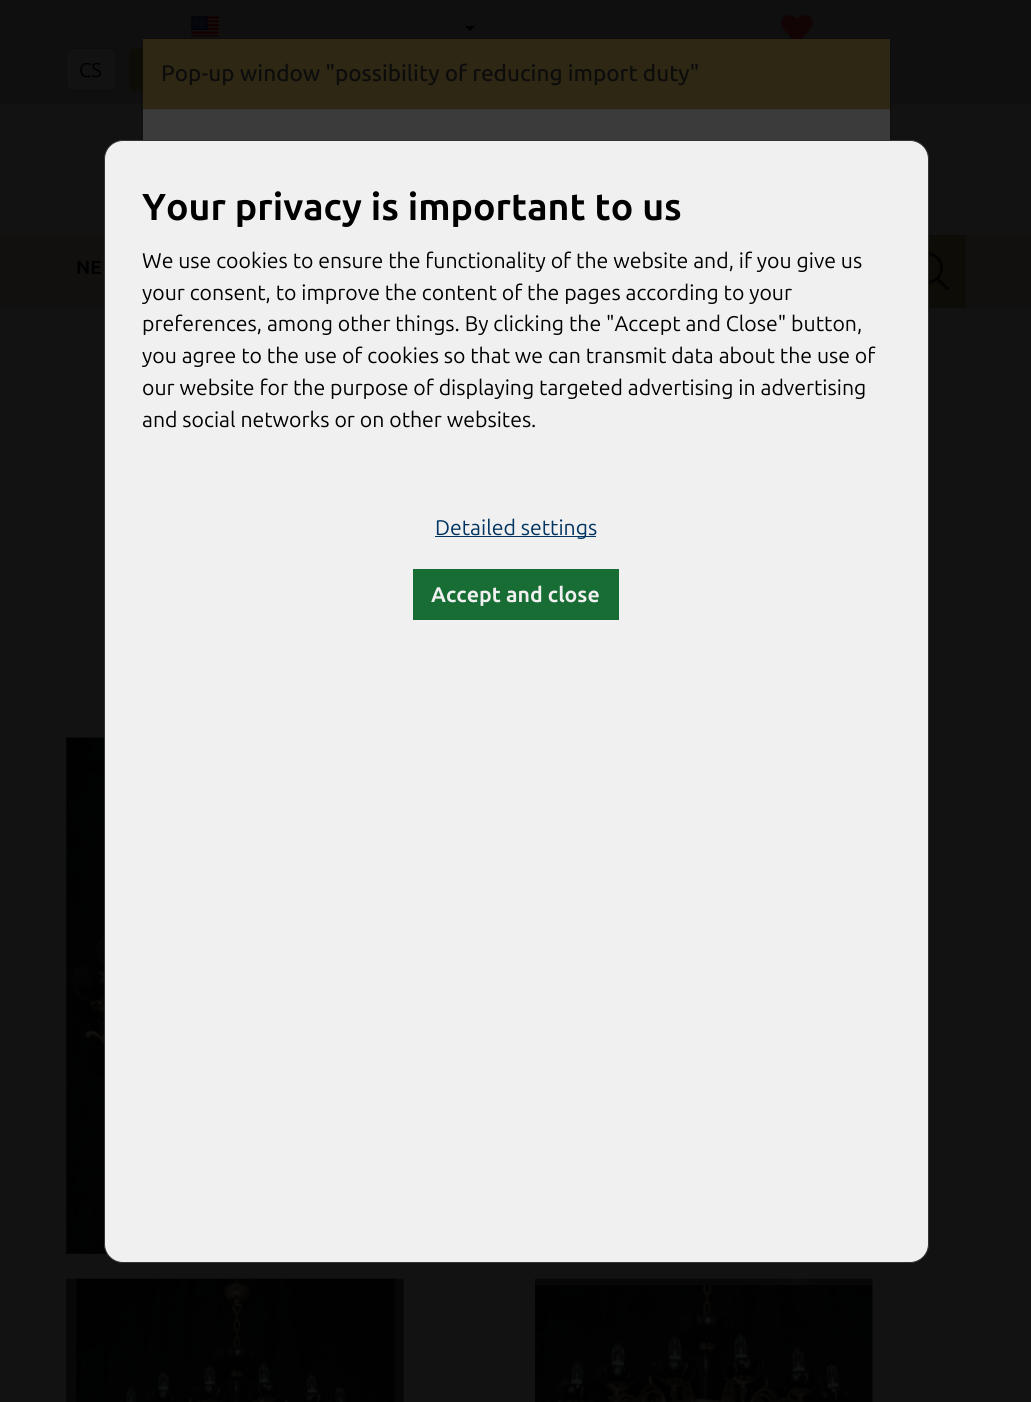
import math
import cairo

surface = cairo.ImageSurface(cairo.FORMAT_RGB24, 1031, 1402)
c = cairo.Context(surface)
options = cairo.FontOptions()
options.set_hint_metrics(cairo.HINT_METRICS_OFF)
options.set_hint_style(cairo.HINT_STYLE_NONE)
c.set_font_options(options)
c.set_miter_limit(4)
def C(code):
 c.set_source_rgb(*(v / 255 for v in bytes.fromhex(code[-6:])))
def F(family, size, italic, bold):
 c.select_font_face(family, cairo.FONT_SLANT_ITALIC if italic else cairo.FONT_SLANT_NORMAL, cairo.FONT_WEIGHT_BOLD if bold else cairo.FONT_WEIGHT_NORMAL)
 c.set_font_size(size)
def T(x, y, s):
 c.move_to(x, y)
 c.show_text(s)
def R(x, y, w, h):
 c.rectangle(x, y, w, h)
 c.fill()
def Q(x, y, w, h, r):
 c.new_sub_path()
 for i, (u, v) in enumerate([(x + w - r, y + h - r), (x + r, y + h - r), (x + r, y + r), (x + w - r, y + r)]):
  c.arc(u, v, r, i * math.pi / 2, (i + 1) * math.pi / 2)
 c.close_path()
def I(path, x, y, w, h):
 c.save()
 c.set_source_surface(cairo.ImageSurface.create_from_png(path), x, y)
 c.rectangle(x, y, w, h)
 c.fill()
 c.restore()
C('121212')
c.paint()
C('0f0f0f')
R(0,0,1031,104)
I('1.png',781,14,32,25)
I('2.png',191,16,28,21)
C('000000')
c.new_path()
c.move_to(465,26)
c.line_to(475,26)
c.line_to(470,31)
c.close_path()
c.fill()
C('121212')
Q(66.5,48.5,49,42,5.5)
c.fill_preserve()
C('0d0d0d')
c.set_line_width(1)
c.stroke()
F('Ubuntu',20,0,0)
C('000000')
T(79,77,'CS')
C('0e0c06')
Q(129,48,52,43,6)
c.fill()
C('11100f')
R(0,235,1031,73)
F('Ubuntu',19,0,1)
C('000000')
T(76,274,'NE')
C('0e0c06')
R(929,235,37,73)
I('3.png',929,252,20,38)
C('3b3b3b')
R(143,110,747,30)
Q(141.5,38.5,749,884,7.5)
c.set_source_rgba(0,0,0,0.2)
c.stroke()
C('2e2713')
R(143,39,747,70)
C('353535')
R(143,109,747,1)
F('Ubuntu Medium',22.5,0,0)
C('0c0c0c')
T(161,81,'Pop-up window "possibility of reducing import duty"')
I('4.png',66,737,41,517)
C('f0f0f0')
Q(104.5,140.5,824,1122,18.5)
c.fill_preserve()
C('333333')
c.stroke()
F('Ubuntu',37.5,0,1)
C('000000')
T(142,220,'Your privacy is important to us')
F('Ubuntu',21.25,0,0)
T(142,268,'We use cookies to ensure the functionality of the website and, if you give us')
T(142,300,'your consent, to improve the content of the pages according to your')
T(142,331,'preferences, among other things. By clicking the "Accept and Close" button,')
T(142,363,'you agree to the use of cookies so that we can transmit data about the use of')
T(142,395,'our website for the purpose of displaying targeted advertising in advertising')
T(142,427,'and social networks or on other websites.')
C('013461')
R(435,536,161,1)
T(435,535,'Detailed settings')
C('176d34')
R(413,569,206,51)
F('Ubuntu',21.25,0,1)
C('f0f0f0')
T(431,602,'Accept and close')
I('5.png',66,1278,338,124)
I('6.png',535,1278,338,124)
surface.write_to_png('o.png')
